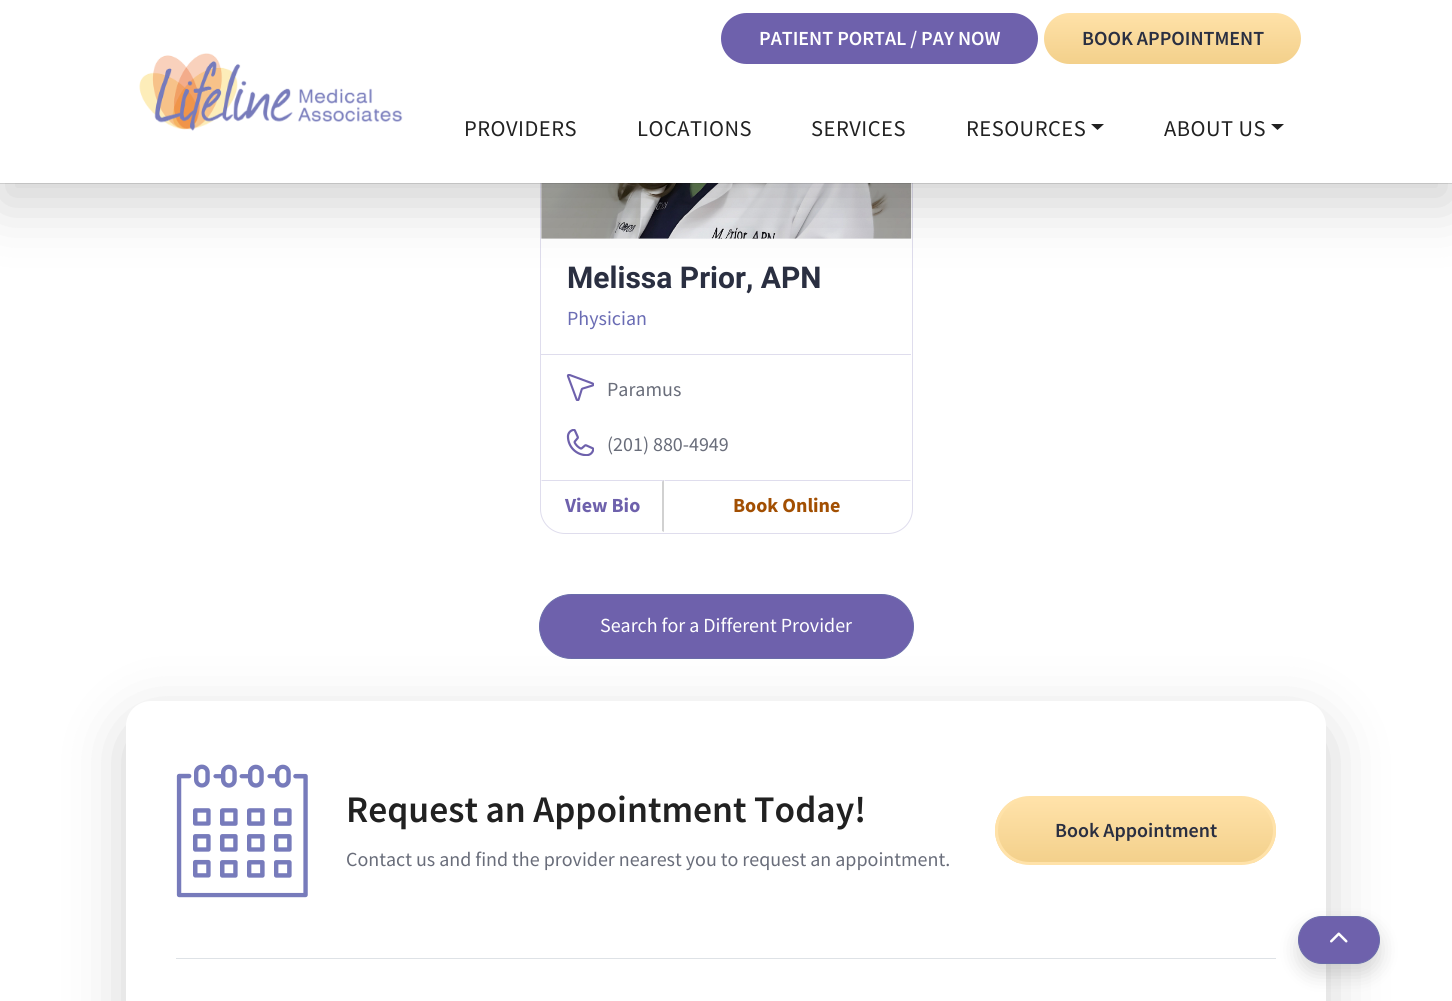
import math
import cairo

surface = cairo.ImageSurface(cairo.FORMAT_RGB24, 1452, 1001)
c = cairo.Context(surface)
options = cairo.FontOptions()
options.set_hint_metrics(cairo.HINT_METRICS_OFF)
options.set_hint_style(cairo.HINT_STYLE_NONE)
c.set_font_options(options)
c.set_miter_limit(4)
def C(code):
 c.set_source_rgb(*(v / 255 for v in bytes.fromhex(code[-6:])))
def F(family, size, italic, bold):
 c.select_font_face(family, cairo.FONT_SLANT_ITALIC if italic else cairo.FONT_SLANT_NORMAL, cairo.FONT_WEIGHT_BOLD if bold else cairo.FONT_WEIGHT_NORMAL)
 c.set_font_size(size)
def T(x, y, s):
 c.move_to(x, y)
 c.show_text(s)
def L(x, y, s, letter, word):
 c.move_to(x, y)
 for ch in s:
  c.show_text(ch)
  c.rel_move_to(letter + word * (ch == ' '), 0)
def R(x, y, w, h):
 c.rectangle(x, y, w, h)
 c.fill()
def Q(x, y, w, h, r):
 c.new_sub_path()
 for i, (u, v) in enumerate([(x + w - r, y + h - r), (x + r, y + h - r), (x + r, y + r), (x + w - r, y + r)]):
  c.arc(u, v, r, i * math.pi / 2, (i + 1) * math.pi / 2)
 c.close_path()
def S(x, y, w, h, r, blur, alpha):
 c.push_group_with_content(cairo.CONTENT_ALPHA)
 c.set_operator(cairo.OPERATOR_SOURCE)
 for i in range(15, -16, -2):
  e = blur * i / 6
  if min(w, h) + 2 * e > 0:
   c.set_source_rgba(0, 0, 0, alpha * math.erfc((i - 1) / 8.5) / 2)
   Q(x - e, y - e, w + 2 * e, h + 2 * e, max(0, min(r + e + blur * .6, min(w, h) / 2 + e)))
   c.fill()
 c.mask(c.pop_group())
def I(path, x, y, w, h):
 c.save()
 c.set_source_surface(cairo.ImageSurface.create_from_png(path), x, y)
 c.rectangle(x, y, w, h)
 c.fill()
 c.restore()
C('ffffff')
c.paint()
Q(540.5,-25.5,372,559,24.5)
C('dfdded')
c.set_line_width(1)
c.stroke()
C('f6f6f9')
R(541,183,370,56)
I('2.png',541,183,371,56)
C('000000')
S(0,20,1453,183,0,30,.18)
c.rectangle(-.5,-.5,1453,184)
c.set_source_rgba(0,0,0,0.12)
c.stroke()
C('ffffff')
R(0,0,1452,183)
C('6e61ac')
Q(721,13,317,51,25.5)
c.fill()
F('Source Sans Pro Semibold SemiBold',20,0,0)
C('ffffff')
T(759,45,'PATIENT PORTAL / PAY NOW')
gradient = cairo.LinearGradient(1173,12,1173,64)
gradient.add_color_stop_rgba(0,1,0.886,0.663,1)
gradient.add_color_stop_rgba(1,0.953,0.816,0.545,1)
c.set_source(gradient)
Q(1044,13,257,51,25.5)
c.fill()
C('2a2f41')
T(1082,45,'BOOK APPOINTMENT')
I('1.png',139,53,264,78)
F('Source Sans Pro',22.5,0,0)
C('212121')
L(464,136,'PROVIDERS',.5,0)
L(637,136,'LOCATIONS',.5,0)
L(811,136,'SERVICES',.5,0)
L(966,136,'RESOURCES',.5,0)
c.new_path()
c.move_to(1091,124)
c.line_to(1104,124)
c.line_to(1097.5,130)
c.close_path()
c.fill()
L(1164,136,'ABOUT US',.5,0)
c.new_path()
c.move_to(1271,124)
c.line_to(1284,124)
c.line_to(1277.5,130)
c.close_path()
c.fill()
C('dfdded')
R(541,354,370,1)
F('Roboto',30,0,1)
C('2a2f41')
T(567,288,'Melissa Prior, APN')
F('Source Sans Pro',20,0,0)
C('6a6cb4')
T(567,325,'Physician')
I('3.png',566,374,28,27)
C('696d7a')
T(607,396,'Paramus')
I('4.png',566,429,28,27)
T(607,451,'(201) 880-4949')
C('dfdded')
c.new_path()
c.move_to(541,480)
c.line_to(542,481)
c.line_to(662,481)
c.line_to(662,482)
c.line_to(664,480)
c.close_path()
c.fill()
c.set_source_rgba(0,0,0,0.18)
c.new_path()
c.move_to(664,480)
c.line_to(664,532)
c.line_to(662,531)
c.line_to(662,482)
c.close_path()
c.fill()
F('Source Sans Pro',20,0,1)
C('6e61ac')
T(565,512,'View Bio')
C('dfdded')
c.new_path()
c.move_to(664,480)
c.line_to(665,481)
c.line_to(910,481)
c.line_to(911,480)
c.close_path()
c.fill()
C('a24f02')
T(733,512,'Book Online')
C('6e61ac')
Q(539.5,594.5,374,64,32)
c.fill_preserve()
C('6a6caa')
c.stroke()
F('Source Sans Pro',20,0,0)
C('ffffff')
T(600,632,'Search for a Different Provider')
C('000000')
S(126,721,1200,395,25,30,.18)
C('ffffff')
Q(126,701,1200,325,25)
c.fill()
I('5.png',176,764,132,134)
F('Source Sans Pro Semibold SemiBold',37.5,0,0)
C('212121')
T(346,822,'Request an Appointment Today!')
F('Source Sans Pro',20,0,0)
C('696d7a')
T(346,866,'Contact us and find the provider nearest you to request an appointment.')
c.save()
Q(995,796,281,69,34.5)
c.clip()
gradient = cairo.LinearGradient(1136,799,1136,863)
gradient.add_color_stop_rgba(0,1,0.886,0.663,1)
gradient.add_color_stop_rgba(1,0.953,0.816,0.545,1)
c.set_source(gradient)
R(995,799,281,64)
c.restore()
Q(996.5,797.5,278,66,33)
C('ffe2a9')
c.set_line_width(3)
c.stroke()
F('Source Sans Pro Semibold SemiBold',20,0,0)
C('2a2f41')
T(1055,837,'Book Appointment')
C('dee2e6')
R(176,958,1100,1)
C('000000')
S(1298,926,82,48,24,10,.15)
C('6e61ac')
Q(1298.5,916.5,81,47,23.5)
c.fill_preserve()
C('6a6caa')
c.set_line_width(1)
c.stroke()
I('6.png',1330,932,18,11)
surface.write_to_png('o.png')
